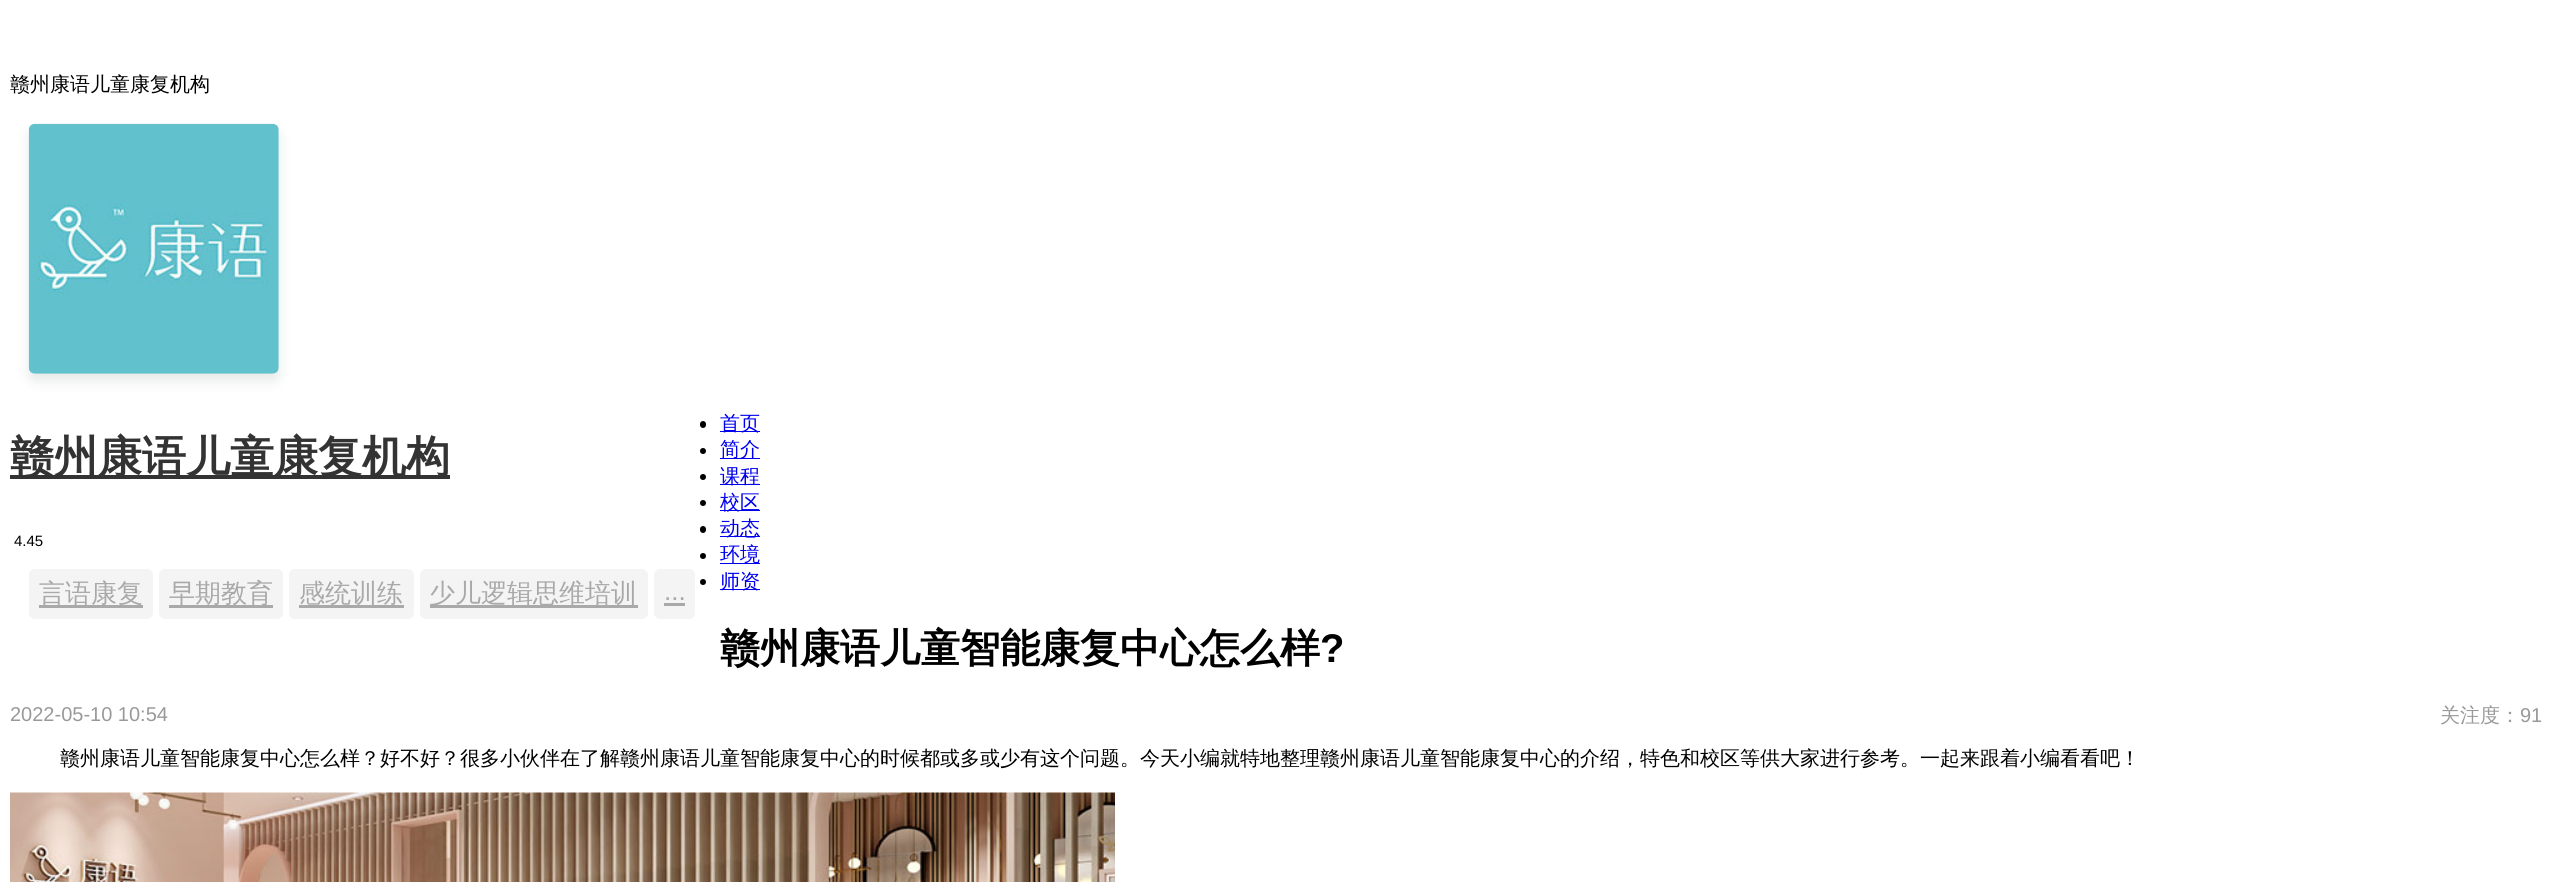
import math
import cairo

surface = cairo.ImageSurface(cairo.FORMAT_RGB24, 2552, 882)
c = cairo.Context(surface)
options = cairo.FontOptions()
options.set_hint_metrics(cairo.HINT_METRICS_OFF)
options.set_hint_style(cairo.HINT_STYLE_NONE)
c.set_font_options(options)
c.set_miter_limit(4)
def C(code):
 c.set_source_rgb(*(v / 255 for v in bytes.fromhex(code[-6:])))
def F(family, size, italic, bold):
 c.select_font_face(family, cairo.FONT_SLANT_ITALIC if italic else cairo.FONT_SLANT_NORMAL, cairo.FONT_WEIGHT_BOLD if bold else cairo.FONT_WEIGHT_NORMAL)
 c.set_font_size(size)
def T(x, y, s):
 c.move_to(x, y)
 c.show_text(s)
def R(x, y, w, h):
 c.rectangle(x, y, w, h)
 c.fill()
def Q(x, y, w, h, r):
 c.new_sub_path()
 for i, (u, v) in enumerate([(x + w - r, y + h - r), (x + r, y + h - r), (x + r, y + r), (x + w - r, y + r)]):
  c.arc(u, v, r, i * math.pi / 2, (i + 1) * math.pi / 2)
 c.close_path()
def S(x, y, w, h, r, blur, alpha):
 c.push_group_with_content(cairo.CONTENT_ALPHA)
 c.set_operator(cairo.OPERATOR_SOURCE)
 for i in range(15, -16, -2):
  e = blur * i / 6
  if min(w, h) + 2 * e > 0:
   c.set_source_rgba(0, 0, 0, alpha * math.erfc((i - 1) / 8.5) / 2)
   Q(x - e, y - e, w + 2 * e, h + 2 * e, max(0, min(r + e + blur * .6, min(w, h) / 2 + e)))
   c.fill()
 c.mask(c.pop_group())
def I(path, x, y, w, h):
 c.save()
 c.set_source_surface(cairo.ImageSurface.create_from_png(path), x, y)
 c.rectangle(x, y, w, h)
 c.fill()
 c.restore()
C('ffffff')
c.paint()
F('WenQuanYi Zen Hei Medium',20,0,0)
C('000000')
T(10,91,'赣州康语儿童康复机构')
C('5f6569')
S(29,131,250,250,6,6,.15)
I('1.png',28,123,251,251)
C('333333')
R(10,475,440,4)
F('WenQuanYi Zen Hei',44,0,1)
T(10,472,'赣州康语儿童康复机构')
F('Liberation Sans',15,0,0)
C('000000')
T(14,546,'4.45')
C('f4f4f4')
Q(29,569,124,50,6)
c.fill()
C('a9a9a9')
R(39,605,104,3)
F('WenQuanYi Zen Hei Medium',26,0,0)
T(39,602,'言语康复')
C('f4f4f4')
Q(159,569,124,50,6)
c.fill()
C('a9a9a9')
R(169,605,104,3)
T(169,602,'早期教育')
C('f4f4f4')
Q(289,569,125,50,6)
c.fill()
C('a9a9a9')
R(299,605,105,3)
T(299,602,'感统训练')
C('f4f4f4')
Q(420,569,228,50,6)
c.fill()
C('a9a9a9')
R(430,605,208,3)
T(429,602,'少儿逻辑思维培训')
C('f4f4f4')
Q(654,569,41,50,6)
c.fill()
F('Liberation Sans',26,0,0)
C('a9a9a9')
T(664,600,'...')
R(664,603,21,3)
C('000000')
Q(700,421,6,7,3)
c.fill()
C('0000ee')
R(720,431,40,1)
F('WenQuanYi Zen Hei Medium',20,0,0)
T(720,430,'首页')
C('000000')
c.new_path()
c.arc(703,451,3,0,2 * math.pi)
c.fill()
C('0000ee')
R(720,458,40,1)
T(720,456,'简介')
C('000000')
c.new_path()
c.arc(703,477,3,0,2 * math.pi)
c.fill()
C('0000ee')
R(720,484,40,1)
T(720,483,'课程')
C('000000')
c.new_path()
c.arc(703,503,3,0,2 * math.pi)
c.fill()
C('0000ee')
R(720,510,40,1)
T(720,509,'校区')
C('000000')
Q(700,526,6,7,3)
c.fill()
C('0000ee')
R(720,536,40,1)
T(720,535,'动态')
C('000000')
c.new_path()
c.arc(703,556,3,0,2 * math.pi)
c.fill()
C('0000ee')
R(720,563,40,1)
T(720,561,'环境')
C('000000')
c.new_path()
c.arc(703,582,3,0,2 * math.pi)
c.fill()
C('0000ee')
R(720,589,40,1)
T(720,588,'师资')
F('WenQuanYi Zen Hei',40,0,1)
C('000000')
T(720,662,'赣州康语儿童智能康复中心怎么样')
F('Liberation Sans',40,0,1)
T(1320,662,'?')
F('Liberation Sans',20,0,0)
C('999999')
T(10,721,'2022-05-10 10:54')
F('WenQuanYi Zen Hei Medium',20,0,0)
T(2440,722,'关注度：')
F('Liberation Sans',20,0,0)
T(2520,722,'91')
F('WenQuanYi Zen Hei Medium',20,0,0)
C('000000')
T(60,765,'赣州康语儿童智能康复中心怎么样？好不好？很多小伙伴在了解赣州康语儿童智能康复中心的时候都或多或少有这个问题。今天小编就特地整理赣州康语儿童智能康复中心的介绍，特色和校区等供大家进行参考。一起来跟着小编看看吧！')
I('2.png',10,792,1105,90)
surface.write_to_png('o.png')
